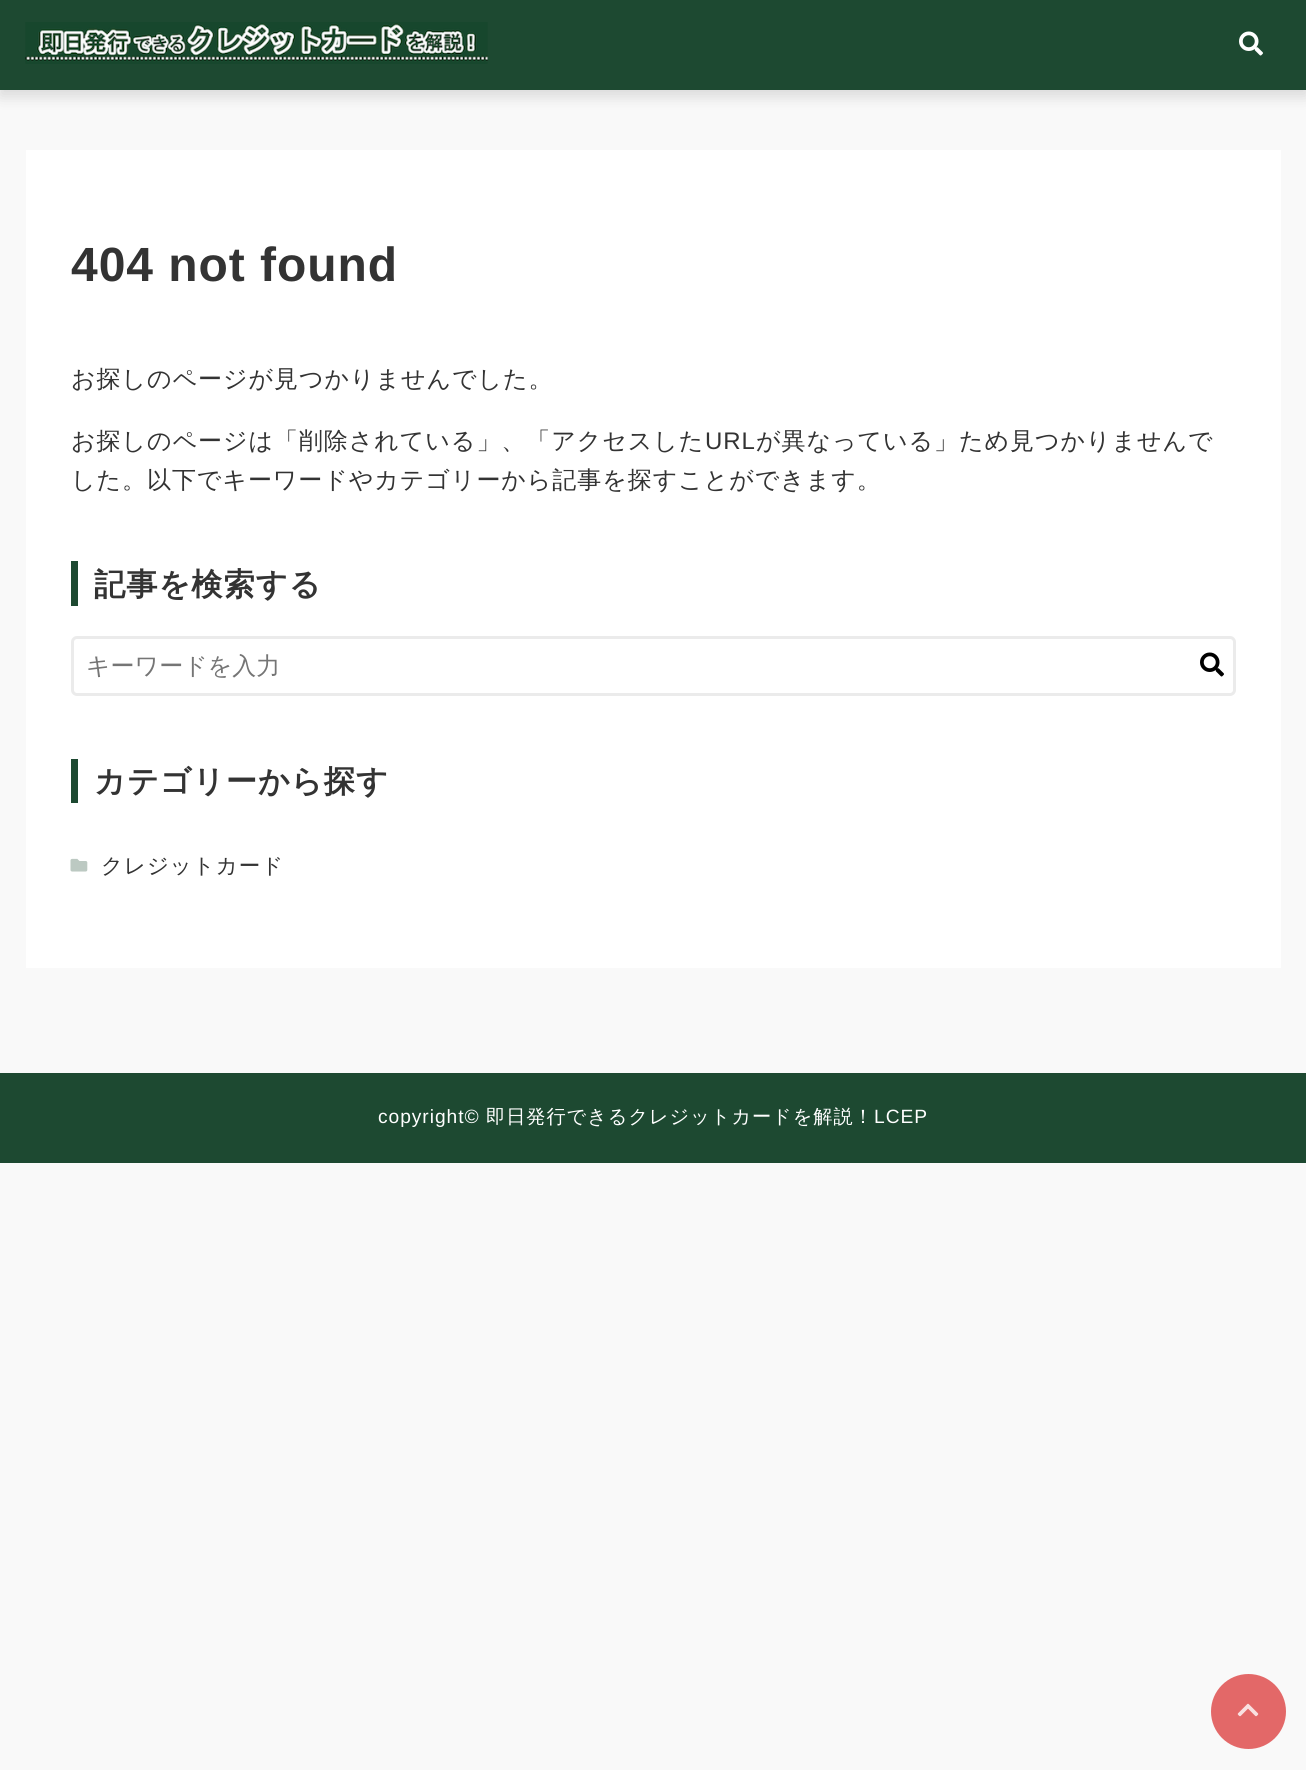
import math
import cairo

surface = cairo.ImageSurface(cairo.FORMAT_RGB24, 1306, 1770)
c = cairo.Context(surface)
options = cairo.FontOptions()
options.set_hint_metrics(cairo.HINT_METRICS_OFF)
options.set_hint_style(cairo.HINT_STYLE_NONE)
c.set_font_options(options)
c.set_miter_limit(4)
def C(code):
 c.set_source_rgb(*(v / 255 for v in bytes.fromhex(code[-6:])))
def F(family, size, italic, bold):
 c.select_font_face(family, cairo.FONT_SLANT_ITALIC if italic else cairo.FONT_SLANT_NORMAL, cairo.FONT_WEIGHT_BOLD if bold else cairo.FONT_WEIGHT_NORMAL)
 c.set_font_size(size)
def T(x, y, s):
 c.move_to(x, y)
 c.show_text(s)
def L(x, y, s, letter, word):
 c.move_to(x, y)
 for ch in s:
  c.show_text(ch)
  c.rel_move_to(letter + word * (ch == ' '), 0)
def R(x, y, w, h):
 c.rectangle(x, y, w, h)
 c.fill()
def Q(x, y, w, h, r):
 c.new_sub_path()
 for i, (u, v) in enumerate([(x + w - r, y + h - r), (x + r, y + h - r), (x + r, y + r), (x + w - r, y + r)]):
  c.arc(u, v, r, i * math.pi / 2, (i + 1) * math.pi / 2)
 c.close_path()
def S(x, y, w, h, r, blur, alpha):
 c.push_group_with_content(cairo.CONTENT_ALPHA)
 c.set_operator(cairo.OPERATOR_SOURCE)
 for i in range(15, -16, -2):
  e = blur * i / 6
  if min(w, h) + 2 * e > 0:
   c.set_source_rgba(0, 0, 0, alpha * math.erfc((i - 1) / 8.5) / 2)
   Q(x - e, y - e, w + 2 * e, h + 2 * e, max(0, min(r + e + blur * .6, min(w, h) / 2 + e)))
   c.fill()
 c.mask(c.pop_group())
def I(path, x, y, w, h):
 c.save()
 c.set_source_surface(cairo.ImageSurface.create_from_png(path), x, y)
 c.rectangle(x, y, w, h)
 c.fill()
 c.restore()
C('f9f9f9')
c.paint()
C('000000')
S(0,6,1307,90,0,7.5,.14)
C('1d4931')
R(0,0,1306,90)
I('1.png',25,22,463,42)
I('2.png',1239,31,24,25)
C('ffffff')
R(26,150,1255,818)
F('Liberation Sans',48,0,1)
C('333333')
L(71,281,'404 not found',.95,0)
F('WenQuanYi Zen Hei Medium',24,0,0)
L(71,387,'お探しのページが見つかりませんでした。',.95,0)
L(71,449,'お探しのページは「削除されている」、「アクセスした',.95,0)
F('Liberation Sans',24,0,0)
L(705,449,'URL',.95,0)
F('WenQuanYi Zen Hei Medium',24,0,0)
L(756,449,'が異なっている」ため見つかりませんで',.95,0)
L(71,488,'した。以下でキーワードやカテゴリーから記事を探すことができます。',.95,0)
C('1d4931')
R(71,561,7,45)
F('WenQuanYi Zen Hei',31.25,0,1)
C('333333')
L(94,595,'記事を検索する',.95,0)
Q(72.5,637.5,1162,57,4.5)
C('ebebeb')
c.set_line_width(3)
c.stroke()
F('WenQuanYi Zen Hei Medium',24,0,0)
C('757575')
T(86,674,'キーワードを入力')
I('3.png',1200,652,24,25)
C('1d4931')
R(71,759,7,44)
F('WenQuanYi Zen Hei',31.25,0,1)
C('333333')
L(94,792,'カテゴリーから探す',.95,0)
I('4.png',70,858,18,14)
F('WenQuanYi Zen Hei Medium',21.5,0,0)
L(101,873,'クレジットカード',.95,0)
C('1d4931')
R(0,1073,1306,90)
F('Liberation Sans',19.2,0,0)
C('ffffff')
L(378,1123,'copyright©',.95,0)
F('WenQuanYi Zen Hei Medium',19.2,0,0)
L(486,1123,'即日発行できるクレジットカードを解説！',.95,0)
F('Liberation Sans',19.2,0,0)
L(874,1123,'LCEP',.95,0)
C('e36868')
c.new_path()
c.arc(1248.5,1711.5,37.5,0,2 * math.pi)
c.fill()
I('5.png',1237,1703,22,14)
surface.write_to_png('o.png')
